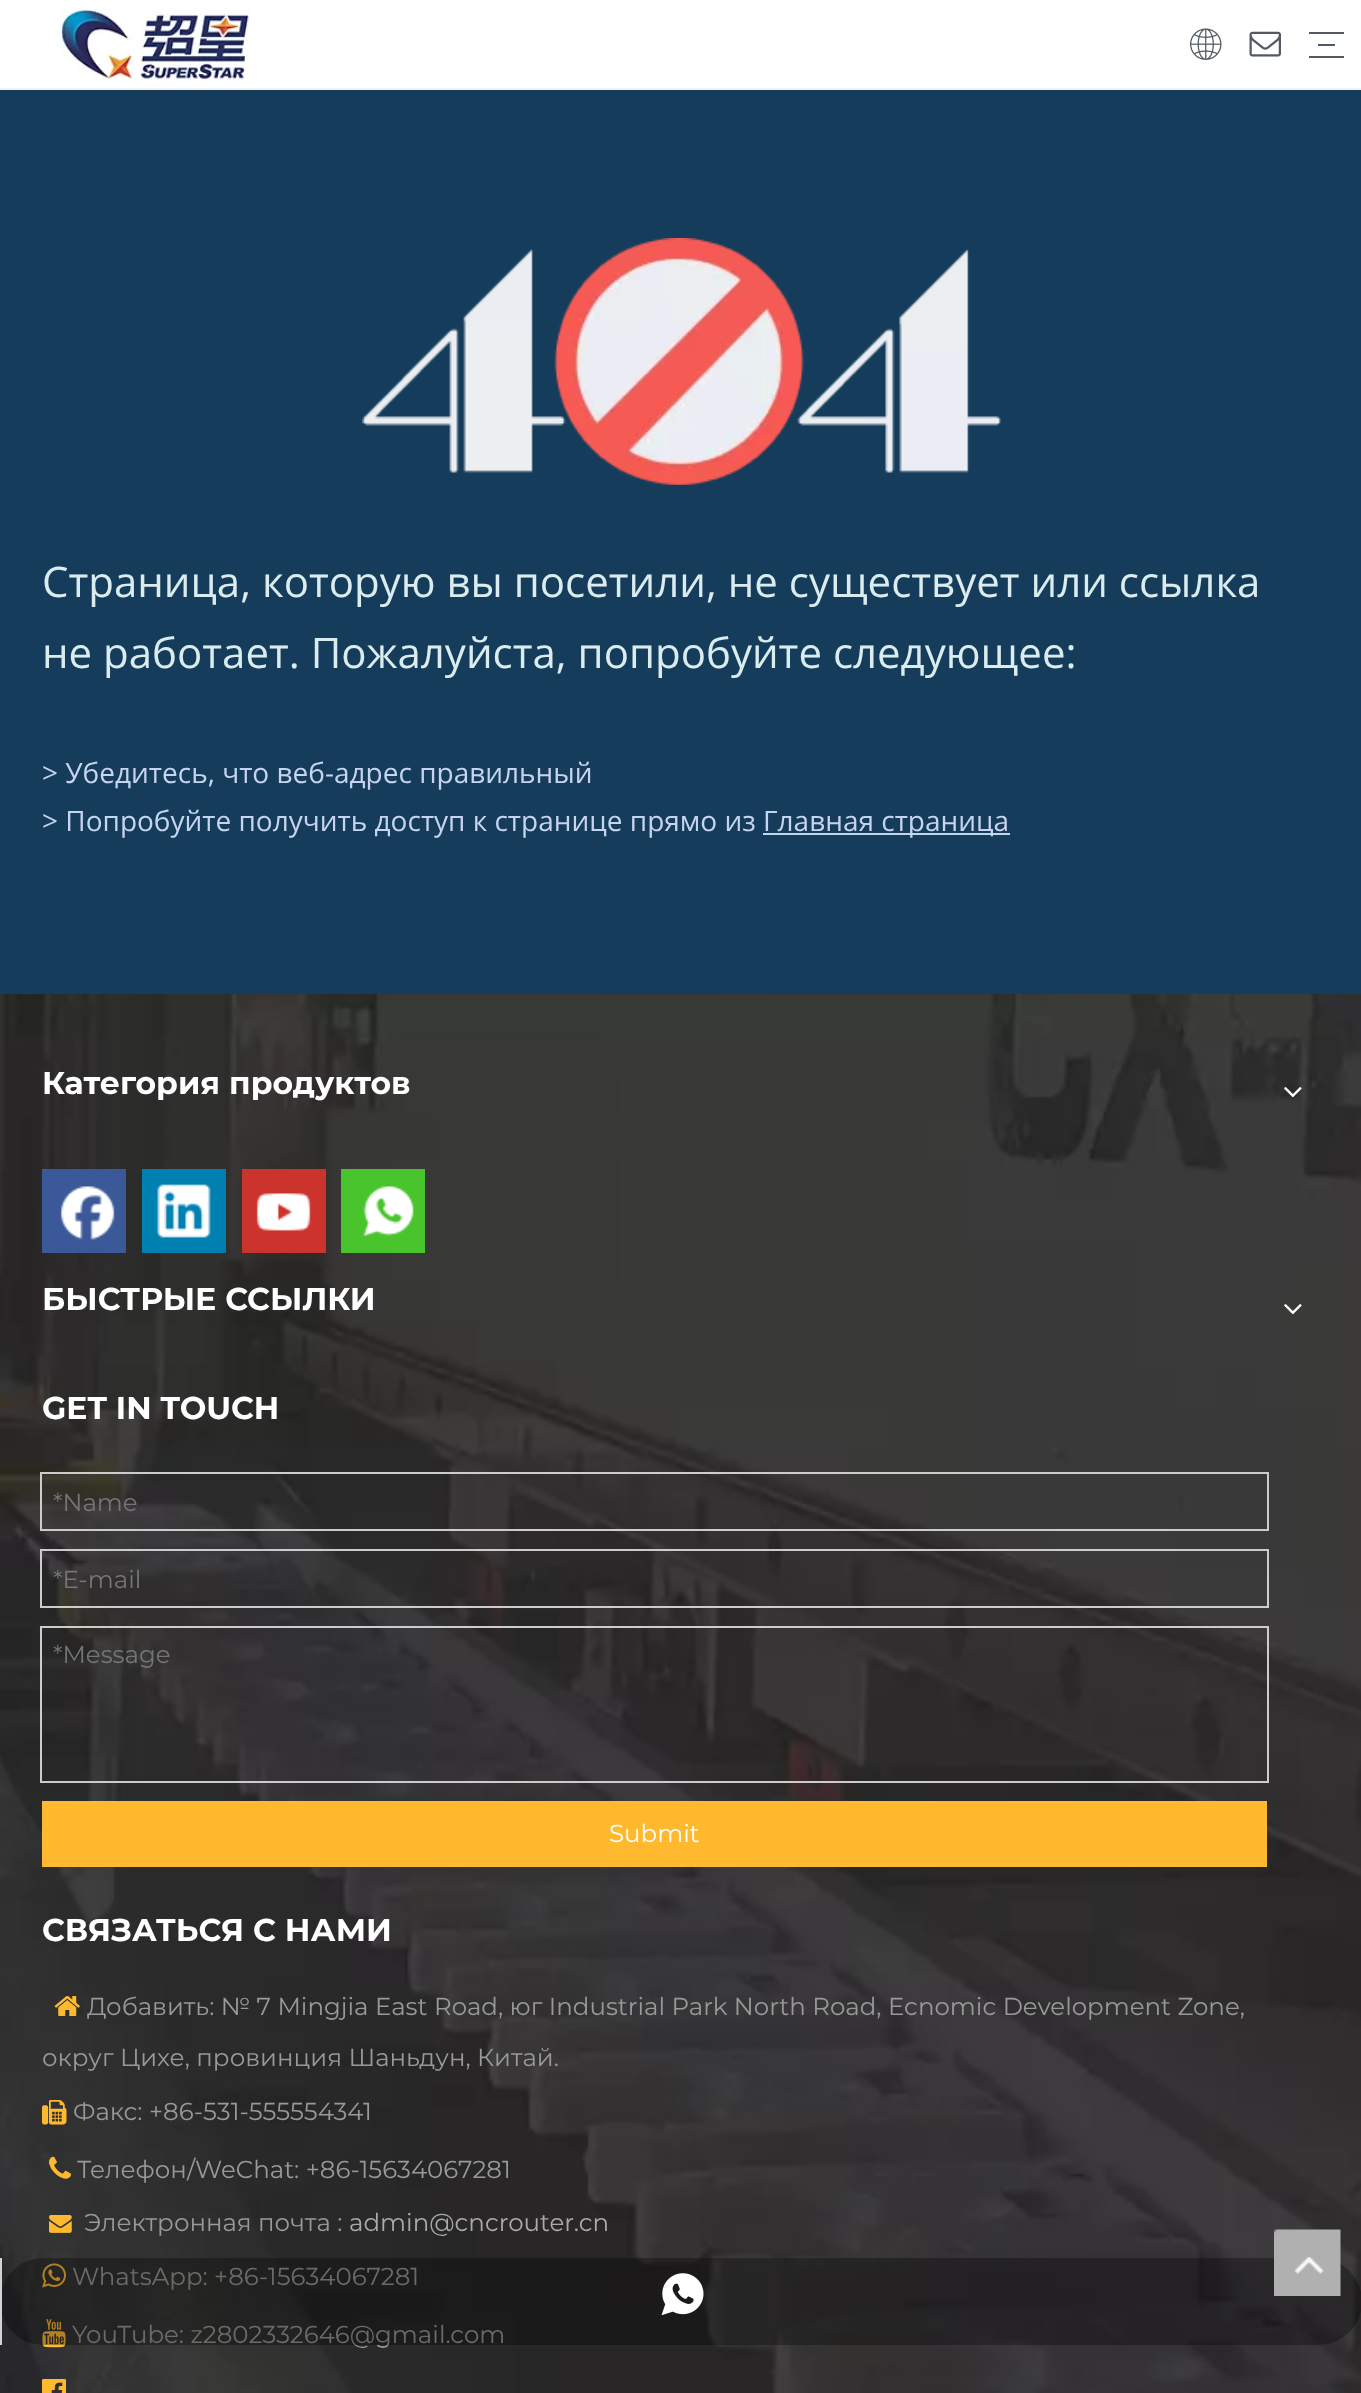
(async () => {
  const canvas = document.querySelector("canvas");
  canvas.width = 1361;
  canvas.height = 2393;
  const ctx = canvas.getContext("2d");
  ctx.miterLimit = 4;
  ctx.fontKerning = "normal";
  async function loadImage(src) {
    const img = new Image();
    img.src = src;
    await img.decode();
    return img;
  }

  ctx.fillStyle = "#ffffff";
  ctx.fillRect(0, 0, 1361, 2393);
  ctx.fillStyle = "#f3f3f3";
  ctx.fillRect(0, 88, 1361, 2);
  ctx.drawImage(await loadImage("img/1.png"), 60, 8, 189, 73);
  ctx.drawImage(await loadImage("img/2.png"), 1190, 28, 32, 32);
  ctx.drawImage(await loadImage("img/3.png"), 1249, 31, 32, 26);
  for (const [x, y, w, h, color] of [
    [1309, 32, 35, 2, "#535a62"],
    [1318, 44, 17, 2, "#535a62"],
    [1309, 56, 35, 2, "#535a62"],
    [0, 90, 1361, 904, "#153d5b"],
  ]) {
    ctx.fillStyle = color;
    ctx.fillRect(x, y, w, h);
  }
  ctx.drawImage(await loadImage("img/4.png"), 362, 238, 639, 247);
  ctx.fillStyle = "#c6d4ef";
  ctx.fillRect(763, 833, 247, 2);
  ctx.drawImage(await loadImage("img/5.png"), 0, 994, 1361, 1399);
  ctx.drawImage(await loadImage("img/6.png"), 1284, 1087, 18, 11);
  ctx.fillStyle = "#3b5998";
  ctx.fillRect(42, 1169, 84, 84);
  ctx.drawImage(await loadImage("img/7.png"), 60, 1186, 55, 54);
  ctx.fillStyle = "#007fb1";
  ctx.fillRect(142, 1169, 84, 84);
  ctx.drawImage(await loadImage("img/8.png"), 157, 1184, 54, 54);
  ctx.fillStyle = "#cd332d";
  ctx.fillRect(242, 1169, 84, 84);
  ctx.drawImage(await loadImage("img/9.png"), 256, 1193, 55, 38);
  ctx.fillStyle = "#49c42d";
  ctx.fillRect(341, 1169, 84, 84);
  ctx.drawImage(await loadImage("img/10.png"), 363, 1186, 51, 50);
  ctx.drawImage(await loadImage("img/11.png"), 1284, 1304, 18, 11);
  ctx.strokeStyle = "#cccccc";
  ctx.lineWidth = 2;
  ctx.strokeRect(41, 1473, 1227, 57);
  ctx.strokeRect(41, 1550, 1227, 57);
  ctx.strokeRect(41, 1627, 1227, 155);
  ctx.fillStyle = "#feb92f";
  ctx.fillRect(42, 1801, 1225, 66);
  ctx.drawImage(await loadImage("img/13.png"), 54, 1996, 26, 20);
  ctx.drawImage(await loadImage("img/14.png"), 42, 2100, 25, 25);
  ctx.drawImage(await loadImage("img/15.png"), 49, 2156, 22, 23);
  ctx.drawImage(await loadImage("img/16.png"), 49, 2215, 23, 18);
  ctx.drawImage(await loadImage("img/17.png"), 42, 2263, 24, 25);
  ctx.drawImage(await loadImage("img/18.png"), 42, 2319, 24, 29);
  ctx.drawImage(await loadImage("img/19.png"), 42, 2379, 24, 14);
  ctx.font = "42px Open Sans";
  ctx.fillStyle = "#daecee";
  ctx.fillText("Страница, которую вы посетили, не существует или ссылка", 42, 597);
  ctx.fillText("не работает. Пожалуйста, попробуйте следующее:", 42, 668);
  ctx.font = "28px Open Sans";
  ctx.fillStyle = "#c6d4ef";
  for (const [text, x, y] of [
    ["> Убедитесь, что веб-адрес правильный", 42, 783],
    ["> Попробуйте получить доступ к странице прямо из", 42, 831],
    ["Главная страница", 763, 831],
  ]) {
    ctx.fillText(text, x, y);
  }
  ctx.font = "bold 31.5px Montserrat";
  ctx.fillStyle = "#ffffff";
  for (const [text, x, y] of [
    ["Категория продуктов", 42, 1094],
    ["БЫСТРЫЕ ССЫЛКИ", 42, 1310],
    ["GET IN TOUCH", 42, 1419],
  ]) {
    ctx.fillText(text, x, y);
  }
  ctx.font = "24.5px Montserrat";
  ctx.fillStyle = "#757575";
  for (const [text, x, y] of [
    ["*Name", 53, 1511],
    ["*E-mail", 53, 1588],
    ["*Message", 53, 1663],
  ]) {
    ctx.fillText(text, x, y);
  }
  ctx.fillStyle = "#ffffff";
  ctx.fillText("Submit", 609, 1842);
  ctx.font = "bold 31.5px Montserrat";
  ctx.fillText("СВЯЗАТЬСЯ С НАМИ", 42, 1941);
  ctx.font = "24.5px Montserrat";
  ctx.fillStyle = "#999999";
  for (const [text, x, y] of [
    ["Добавить: № 7 Mingjia East Road, юг Industrial Park North Road, Ecnomic Development Zone,", 87, 2015],
    ["округ Цихе, провинция Шаньдун, Китай.", 42, 2066],
    ["Факс: +86-531-555554341", 73, 2120],
    ["Телефон/WeChat: +86-15634067281", 77, 2178],
    ["Электронная почта :", 84, 2231],
  ]) {
    ctx.fillText(text, x, y);
  }
  ctx.fillStyle = "#aaaaaa";
  ctx.fillText("admin@cncrouter.cn", 349, 2231);
  ctx.fillStyle = "#999999";
  ctx.fillText("WhatsApp: +86-15634067281", 72, 2285);
  ctx.fillText("YouTube: z2802332646@gmail.com", 72, 2343);
  ctx.fillStyle = "rgba(0, 0, 0, 0.3)";
  ctx.beginPath();
  ctx.roundRect(0, 2258, 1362, 87, 43.5);
  ctx.fill();
  ctx.drawImage(await loadImage("img/12.png"), 661, 2273, 43, 43);
  ctx.fillStyle = "#d3d3d3";
  ctx.fillRect(0, 2258, 2, 87);
  ctx.drawImage(await loadImage("img/20.png"), 1274, 2229, 67, 67);
})();
